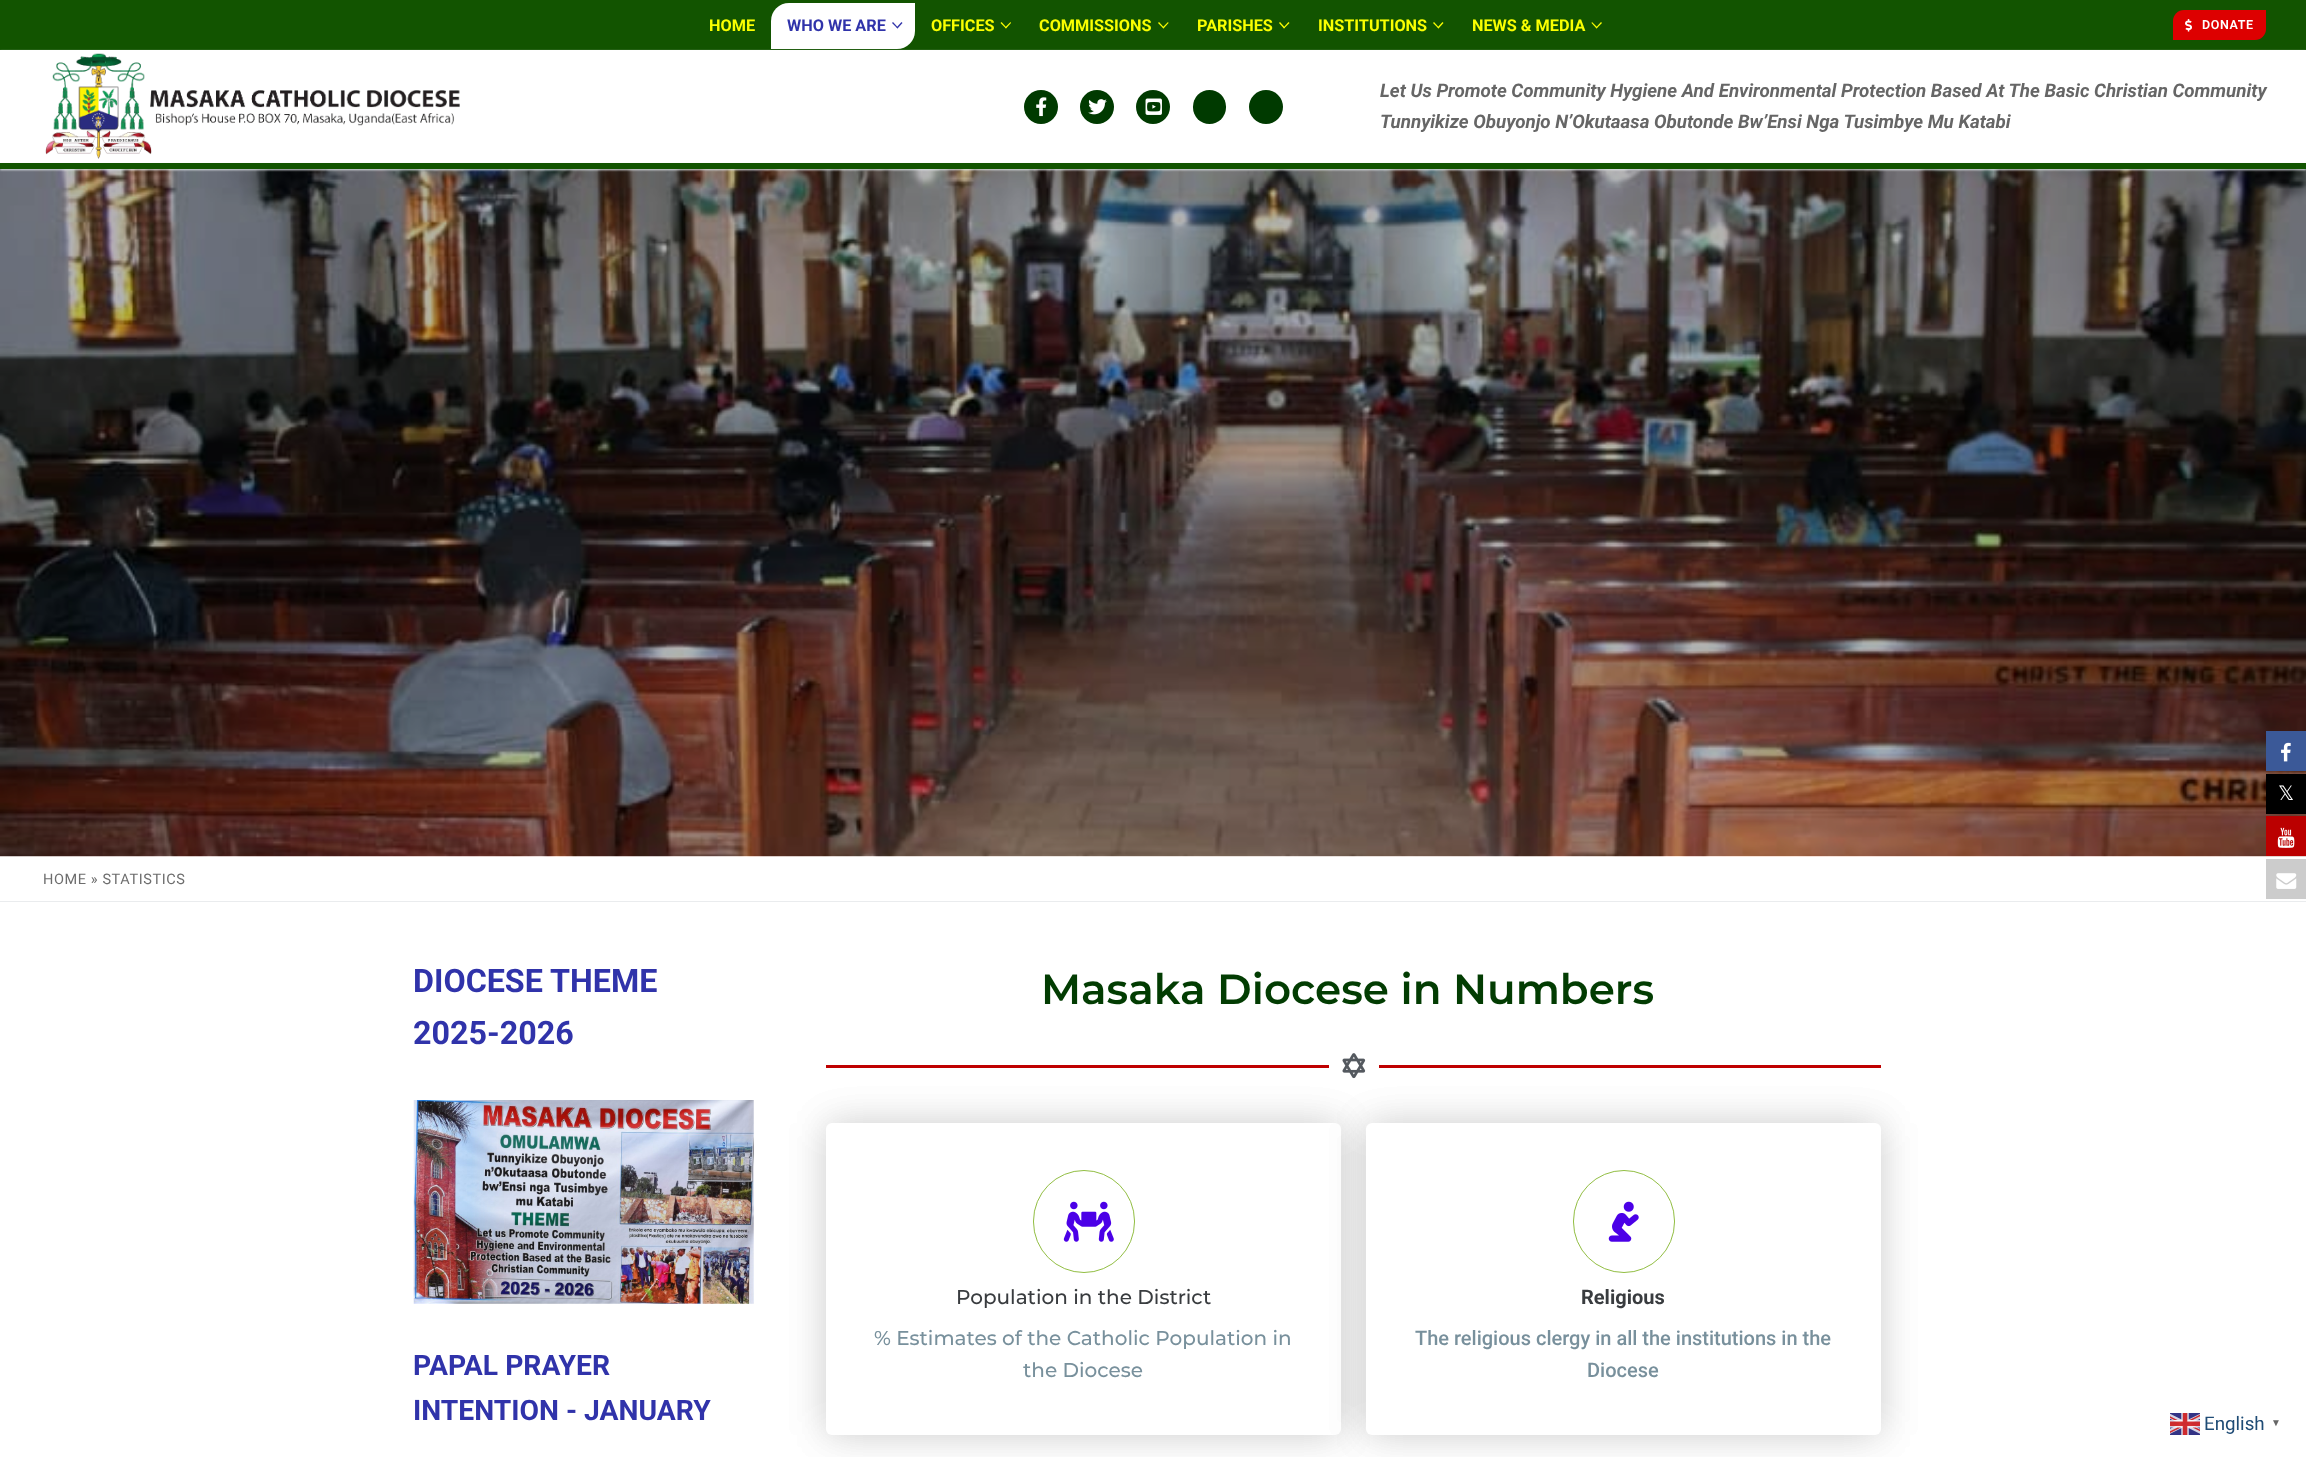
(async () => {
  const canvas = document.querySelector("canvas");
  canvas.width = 2306;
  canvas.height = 1457;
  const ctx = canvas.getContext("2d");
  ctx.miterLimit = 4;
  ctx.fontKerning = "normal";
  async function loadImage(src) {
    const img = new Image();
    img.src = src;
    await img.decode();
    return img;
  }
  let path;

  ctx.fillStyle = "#ffffff";
  ctx.fillRect(0, 0, 2306, 1457);
  ctx.fillStyle = "#125400";
  ctx.fillRect(0, 0, 2306, 50);
  ctx.fillStyle = "#e1e5ea";
  ctx.filter = "blur(1px)";
  ctx.beginPath();
  ctx.rect(0, 51, 2306, 113);
  ctx.fill();
  ctx.filter = "none";
  ctx.fillStyle = "#ffffff";
  ctx.beginPath();
  ctx.roundRect(771, 3, 144, 46, [18, 0, 18, 0]);
  ctx.fill();
  ctx.fillStyle = "#3033aa";
  path = new Path2D("M897.5 28.5L892 23L893 22L898 27.5Z");
  ctx.fill(path);
  path = new Path2D("M897.5 28.5L896.5 27.5L901.5 22L902.5 23Z");
  ctx.fill(path);
  ctx.fillStyle = "#faff00";
  path = new Path2D("M1006 28.5L1000.5 23L1001.5 22L1006.5 27.5Z");
  ctx.fill(path);
  path = new Path2D("M1006 28.5L1005 27.5L1010.5 22L1011 23Z");
  ctx.fill(path);
  path = new Path2D("M1163.5 28.5L1158 23L1159 22L1164 27.5Z");
  ctx.fill(path);
  path = new Path2D("M1163.5 28.5L1162.5 27.5L1168 22L1168.5 23Z");
  ctx.fill(path);
  path = new Path2D("M1284 28.5L1279 23L1280 22L1285 27.5Z");
  ctx.fill(path);
  path = new Path2D("M1284 28.5L1283.5 27.5L1288.5 22L1289.5 23Z");
  ctx.fill(path);
  path = new Path2D("M1438.5 28.5L1433 23L1434 22L1439 27.5Z");
  ctx.fill(path);
  path = new Path2D("M1438.5 28.5L1437.5 27.5L1442.5 22L1443.5 23Z");
  ctx.fill(path);
  path = new Path2D("M1596.5 28.5L1591.5 23L1592 22L1597.5 27.5Z");
  ctx.fill(path);
  path = new Path2D("M1596.5 28.5L1596 27.5L1601 22L1602 23Z");
  ctx.fill(path);
  ctx.fillStyle = "#dd0000";
  ctx.beginPath();
  ctx.roundRect(2173, 10, 93, 30, [11, 0, 11, 0]);
  ctx.fill();
  ctx.drawImage(await loadImage("img/1.png"), 2185, 19, 7, 13);
  ctx.fillStyle = "#ffffff";
  ctx.fillRect(0, 50, 2306, 113);
  ctx.drawImage(await loadImage("img/2.png"), 45, 53, 415, 106);
  ctx.fillStyle = "#003a00";
  ctx.beginPath();
  ctx.arc(1041, 107, 17, 0, Math.PI * 2);
  ctx.fill();
  ctx.drawImage(await loadImage("img/3.png"), 1036, 97, 11, 20);
  ctx.beginPath();
  ctx.arc(1097, 107, 17, 0, Math.PI * 2);
  ctx.fill();
  ctx.drawImage(await loadImage("img/4.png"), 1088, 99, 19, 16);
  ctx.beginPath();
  ctx.arc(1153, 107, 17, 0, Math.PI * 2);
  ctx.fill();
  ctx.drawImage(await loadImage("img/5.png"), 1145, 98, 17, 17);
  ctx.beginPath();
  ctx.roundRect(1193, 90, 33, 34, 16.5);
  ctx.fill();
  ctx.beginPath();
  ctx.arc(1266, 107, 17, 0, Math.PI * 2);
  ctx.fill();
  ctx.drawImage(await loadImage("img/6.png"), 0, 169, 2306, 688);
  ctx.fillStyle = "#e1e5ea";
  ctx.filter = "blur(1px)";
  ctx.beginPath();
  ctx.rect(0, 164, 2306, 6);
  ctx.fill();
  ctx.filter = "none";
  ctx.fillStyle = "#125400";
  ctx.fillRect(0, 163, 2306, 6);
  ctx.fillStyle = "#eaecee";
  ctx.fillRect(0, 901, 2306, 1);
  ctx.drawImage(await loadImage("img/7.png"), 413, 1100, 341, 204);
  ctx.fillStyle = "#bf0000";
  ctx.fillRect(826, 1065, 503, 3);
  ctx.drawImage(await loadImage("img/8.png"), 1342, 1053, 24, 26);
  ctx.fillRect(1379, 1065, 502, 3);
  ctx.fillStyle = "rgba(0, 0, 0, 0.1)";
  ctx.filter = "blur(19px)";
  ctx.beginPath();
  ctx.roundRect(826, 1123, 515, 312, 6);
  ctx.fill();
  ctx.filter = "none";
  ctx.filter = "blur(19px)";
  ctx.beginPath();
  ctx.roundRect(826, 1123, 515, 312, 6);
  ctx.fill();
  ctx.filter = "none";
  ctx.fillStyle = "#ffffff";
  ctx.beginPath();
  ctx.roundRect(826, 1123, 515, 312, 6);
  ctx.fill();
  ctx.beginPath();
  ctx.roundRect(1033.5, 1170.5, 101, 102, 50.5);
  ctx.strokeStyle = "#92be43";
  ctx.stroke();
  ctx.drawImage(await loadImage("img/9.png"), 1063, 1201, 51, 41);
  ctx.fillStyle = "rgba(0, 0, 0, 0.1)";
  ctx.filter = "blur(19px)";
  ctx.beginPath();
  ctx.roundRect(1366, 1123, 515, 312, 6);
  ctx.fill();
  ctx.filter = "none";
  ctx.filter = "blur(19px)";
  ctx.beginPath();
  ctx.roundRect(1366, 1123, 515, 312, 6);
  ctx.fill();
  ctx.filter = "none";
  ctx.fillStyle = "#ffffff";
  ctx.beginPath();
  ctx.roundRect(1366, 1123, 515, 312, 6);
  ctx.fill();
  ctx.beginPath();
  ctx.roundRect(1573.5, 1170.5, 101, 102, 50.5);
  ctx.stroke();
  ctx.drawImage(await loadImage("img/10.png"), 1608, 1201, 31, 41);
  ctx.fillStyle = "#3b5998";
  ctx.fillRect(2266, 731, 40, 40);
  ctx.drawImage(await loadImage("img/11.png"), 2281, 742, 10, 20);
  ctx.fillStyle = "#000000";
  ctx.fillRect(2266, 774, 40, 40);
  ctx.fillStyle = "#bb0000";
  ctx.fillRect(2266, 816, 40, 40);
  ctx.drawImage(await loadImage("img/12.png"), 2277, 827, 18, 21);
  ctx.fillStyle = "#cccccc";
  ctx.fillRect(2266, 859, 40, 40);
  ctx.drawImage(await loadImage("img/13.png"), 2276, 873, 21, 16);
  ctx.drawImage(await loadImage("img/14.png"), 2170, 1413, 30, 22);
  ctx.font = "bold 16.25px Roboto";
  ctx.fillStyle = "#faff00";
  ctx.fillText("HOME", 709, 31);
  ctx.fillStyle = "#3033aa";
  ctx.fillText("WHO WE ARE", 787, 31);
  ctx.fillStyle = "#faff00";
  for (const [text, x, y] of [
    ["OFFICES", 931, 31],
    ["COMMISSIONS", 1039, 31],
    ["PARISHES", 1197, 31],
    ["INSTITUTIONS", 1318, 31],
    ["NEWS & MEDIA", 1472, 31],
  ]) {
    ctx.fillText(text, x, y);
  }
  ctx.letterSpacing = "0.6px";
  ctx.font = "600 12.5px Roboto";
  ctx.fillStyle = "#ffffff";
  ctx.fillText("DONATE", 2202, 29);
  ctx.letterSpacing = "0px";
  ctx.font = "italic bold 18.75px Roboto";
  ctx.fillStyle = "#666666";
  ctx.fillText("Let Us Promote Community Hygiene And Environmental Protection Based At The Basic Christian Community", 1380, 97);
  ctx.fillText("Tunnyikize Obuyonjo N’Okutaasa Obutonde Bw’Ensi Nga Tusimbye Mu Katabi", 1380, 128);
  ctx.letterSpacing = "0.6px";
  ctx.font = "14.5px Roboto";
  ctx.fillStyle = "#6d6d6d";
  ctx.fillText("HOME » STATISTICS", 43, 884);
  ctx.letterSpacing = "0px";
  ctx.font = "bold 32.25px Roboto";
  ctx.fillStyle = "#3033aa";
  ctx.fillText("DIOCESE THEME", 413, 992);
  ctx.fillText("2025-2026", 413, 1044);
  ctx.font = "bold 28.25px Roboto";
  ctx.fillText("PAPAL PRAYER", 413, 1375);
  ctx.fillText("INTENTION - JANUARY", 413, 1420);
  ctx.font = "600 42px Montserrat";
  ctx.fillStyle = "#023c02";
  ctx.fillText("Masaka Diocese in Numbers", 1041, 1004);
  ctx.font = "500 20px Montserrat";
  ctx.fillStyle = "#393c3f";
  ctx.fillText("Population in the District", 956, 1304);
  ctx.fillStyle = "#78909c";
  ctx.fillText("% Estimates of the Catholic Population in", 874, 1345);
  ctx.fillText("the Diocese", 1023, 1377);
  ctx.font = "bold 20px Roboto";
  ctx.fillStyle = "#393c3f";
  ctx.fillText("Religious", 1581, 1304);
  ctx.font = "500 20px Roboto";
  ctx.fillStyle = "#78909c";
  ctx.fillText("The religious clergy in all the institutions in the", 1415, 1345);
  ctx.fillText("Diocese", 1587, 1377);
  ctx.font = "20px DejaVu Sans";
  ctx.fillStyle = "#ffffff";
  ctx.fillText("𝕏", 2278, 800);
  ctx.font = "18.75px Roboto";
  ctx.fillStyle = "#1e4b75";
  ctx.fillText("English", 2204, 1430);
  ctx.font = "bold 10px Liberation Sans";
  ctx.fillStyle = "#666666";
  ctx.fillText("▼", 2271, 1426);
})();
